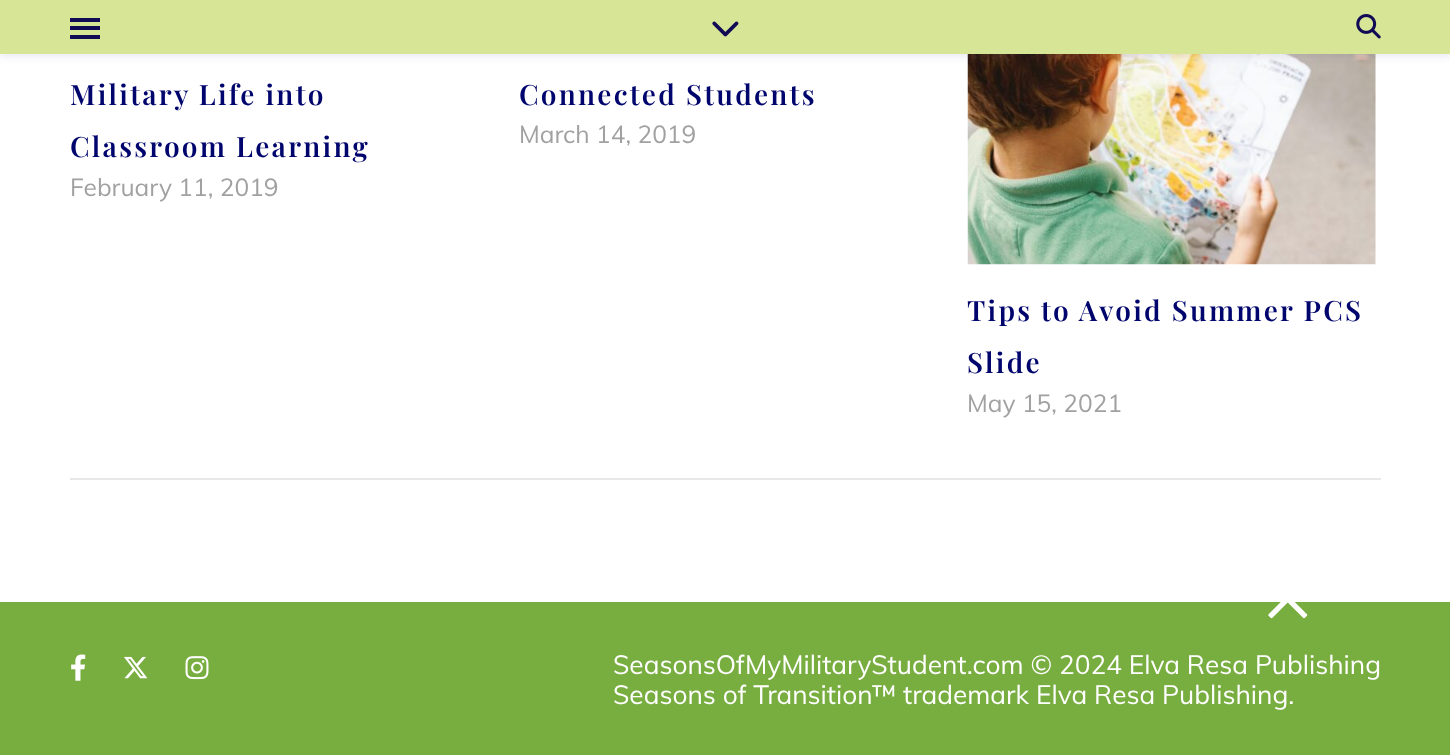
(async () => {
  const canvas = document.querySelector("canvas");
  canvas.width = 1450;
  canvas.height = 755;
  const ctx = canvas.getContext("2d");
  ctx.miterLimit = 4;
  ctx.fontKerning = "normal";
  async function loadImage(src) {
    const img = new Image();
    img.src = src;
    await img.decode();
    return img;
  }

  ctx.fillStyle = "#ffffff";
  ctx.fillRect(0, 0, 1450, 755);
  ctx.drawImage(await loadImage("img/3.png"), 967, 54, 409, 211);
  ctx.fillStyle = "rgba(17, 11, 86, 0.1)";
  ctx.filter = "blur(4.5px)";
  ctx.beginPath();
  ctx.rect(0, 2, 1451, 54);
  ctx.fill();
  ctx.filter = "none";
  for (const [x, y, w, h, color] of [
    [0, 0, 1450, 54, "#d7e597"],
    [70, 18, 30, 4, "#110b56"],
    [70, 26, 30, 4, "#110b56"],
    [70, 35, 30, 4, "#110b56"],
  ]) {
    ctx.fillStyle = color;
    ctx.fillRect(x, y, w, h);
  }
  ctx.drawImage(await loadImage("img/1.png"), 712, 21, 27, 16);
  ctx.drawImage(await loadImage("img/2.png"), 1356, 14, 25, 25);
  ctx.fillStyle = "#e8e8e8";
  ctx.fillRect(70, 478, 1311, 2);
  ctx.fillStyle = "#78ad40";
  ctx.fillRect(0, 602, 1450, 153);
  ctx.drawImage(await loadImage("img/4.png"), 1268, 602, 40, 17);
  ctx.drawImage(await loadImage("img/5.png"), 71, 654, 15, 27);
  ctx.drawImage(await loadImage("img/6.png"), 124, 656, 24, 23);
  ctx.drawImage(await loadImage("img/7.png"), 185, 656, 24, 24);
  ctx.letterSpacing = "2.25px";
  ctx.font = "600 28px Playfair Display";
  ctx.fillStyle = "#00056d";
  ctx.fillText("Military Life into", 70, 105);
  ctx.fillText("Classroom Learning", 70, 157);
  ctx.letterSpacing = "0px";
  ctx.font = "24.5px Muli";
  ctx.fillStyle = "#a1a1a1";
  ctx.fillText("February 11, 2019", 70, 196);
  ctx.letterSpacing = "2.25px";
  ctx.font = "600 28px Playfair Display";
  ctx.fillStyle = "#00056d";
  ctx.fillText("Connected Students", 519, 105);
  ctx.letterSpacing = "0px";
  ctx.font = "24.5px Muli";
  ctx.fillStyle = "#a1a1a1";
  ctx.fillText("March 14, 2019", 519, 143);
  ctx.letterSpacing = "2.25px";
  ctx.font = "600 28px Playfair Display";
  ctx.fillStyle = "#00056d";
  ctx.fillText("Tips to Avoid Summer PCS", 967, 321);
  ctx.fillText("Slide", 967, 373);
  ctx.letterSpacing = "0px";
  ctx.font = "24.5px Muli";
  ctx.fillStyle = "#a1a1a1";
  ctx.fillText("May 15, 2021", 967, 412);
  ctx.font = "26.25px Muli";
  ctx.fillStyle = "#ffffff";
  ctx.fillText("SeasonsOfMyMilitaryStudent.com © 2024 Elva Resa Publishing", 613, 674);
  ctx.fillText("Seasons of Transition™ trademark Elva Resa Publishing.", 613, 704);
})();
